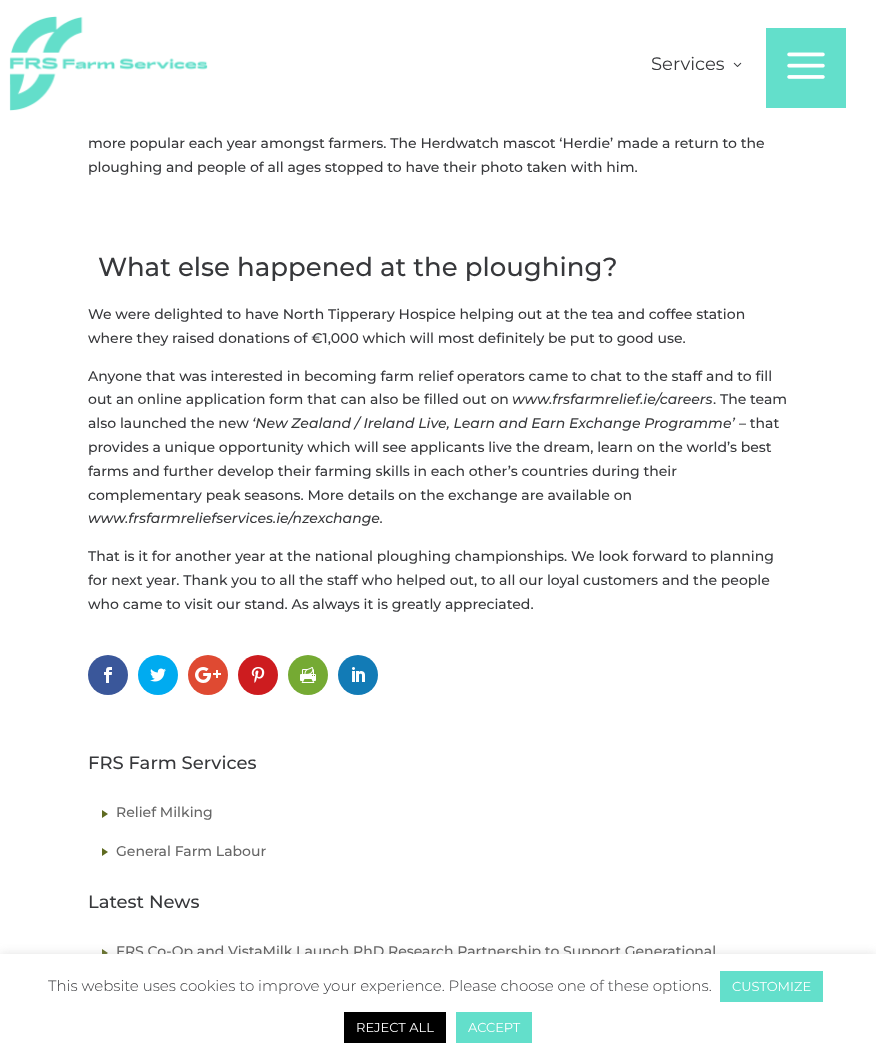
(async () => {
  const canvas = document.querySelector("canvas");
  canvas.width = 876;
  canvas.height = 1060;
  const ctx = canvas.getContext("2d");
  ctx.miterLimit = 4;
  ctx.fontKerning = "normal";
  async function loadImage(src) {
    const img = new Image();
    img.src = src;
    await img.decode();
    return img;
  }
  let path;

  ctx.fillStyle = "#ffffff";
  ctx.fillRect(0, 0, 876, 1060);
  ctx.drawImage(await loadImage("img/1.png"), 9, 16, 199, 95);
  ctx.drawImage(await loadImage("img/2.png"), 733, 62, 9, 5);
  ctx.fillStyle = "#63dfcb";
  ctx.fillRect(766, 28, 80, 80);
  ctx.drawImage(await loadImage("img/3.png"), 787, 52, 38, 27);
  ctx.fillStyle = "#3a579a";
  ctx.beginPath();
  ctx.arc(108, 675, 20, 0, Math.PI * 2);
  ctx.fill();
  ctx.drawImage(await loadImage("img/4.png"), 104, 667, 8, 16);
  ctx.fillStyle = "#00abf0";
  ctx.beginPath();
  ctx.arc(158, 675, 20, 0, Math.PI * 2);
  ctx.fill();
  ctx.drawImage(await loadImage("img/5.png"), 150, 668, 16, 14);
  ctx.fillStyle = "#df4a32";
  ctx.beginPath();
  ctx.arc(208, 675, 20, 0, Math.PI * 2);
  ctx.fill();
  ctx.drawImage(await loadImage("img/6.png"), 195, 667, 26, 16);
  ctx.fillStyle = "#cd1c1f";
  ctx.beginPath();
  ctx.arc(258, 675, 20, 0, Math.PI * 2);
  ctx.fill();
  ctx.drawImage(await loadImage("img/7.png"), 251, 667, 14, 16);
  ctx.fillStyle = "#75aa33";
  ctx.beginPath();
  ctx.arc(308, 675, 20, 0, Math.PI * 2);
  ctx.fill();
  ctx.drawImage(await loadImage("img/8.png"), 300, 667, 16, 16);
  ctx.fillStyle = "#127bb6";
  ctx.beginPath();
  ctx.arc(358, 675, 20, 0, Math.PI * 2);
  ctx.fill();
  ctx.drawImage(await loadImage("img/9.png"), 352, 667, 13, 15);
  ctx.fillStyle = "#5f6b21";
  path = new Path2D("M102 818V810L108 814ZM102 856V848L108 852Z");
  ctx.fill(path);
  path = new Path2D("M102 957V949L108 953Z");
  ctx.fill(path);
  ctx.fillStyle = "rgba(172, 171, 171, 0.3)";
  ctx.filter = "blur(5px)";
  ctx.beginPath();
  ctx.rect(0, 953, 876, 106);
  ctx.fill();
  ctx.filter = "none";
  ctx.font = "18px Montserrat";
  ctx.fillStyle = "#37383b";
  ctx.fillText("Services", 651, 70);
  ctx.font = "500 14px Montserrat";
  ctx.fillText("more popular each year amongst farmers. The Herdwatch mascot ‘Herdie’ made a return to the", 88, 148);
  ctx.fillText("ploughing and people of all ages stopped to have their photo taken with him.", 88, 172);
  ctx.font = "500 26px Montserrat";
  ctx.fillText("What else happened at the ploughing?", 98, 276);
  ctx.font = "500 14px Montserrat";
  for (const [text, x, y] of [
    ["We were delighted to have North Tipperary Hospice helping out at the tea and coffee station", 88, 319],
    ["where they raised donations of €1,000 which will most definitely be put to good use.", 88, 343],
    ["Anyone that was interested in becoming farm relief operators came to chat to the staff and to fill", 88, 381],
    ["out an online application form that can also be filled out on", 88, 404],
  ]) {
    ctx.fillText(text, x, y);
  }
  ctx.font = "italic 500 14px Montserrat";
  ctx.fillText("www.frsfarmrelief.ie/careers", 512, 404);
  ctx.font = "500 14px Montserrat";
  ctx.fillText(". The team", 713, 404);
  ctx.fillText("also launched the new", 88, 428);
  ctx.font = "italic 500 14px Montserrat";
  ctx.fillText("‘New Zealand / Ireland Live, Learn and Earn Exchange Programme’", 252, 428);
  ctx.font = "500 14px Montserrat";
  for (const [text, x, y] of [
    ["– that", 739, 428],
    ["provides a unique opportunity which will see applicants live the dream, learn on the world’s best", 88, 452],
    ["farms and further develop their farming skills in each other’s countries during their", 88, 476],
    ["complementary peak seasons. More details on the exchange are available on", 88, 500],
  ]) {
    ctx.fillText(text, x, y);
  }
  ctx.font = "italic 500 14px Montserrat";
  ctx.fillText("www.frsfarmreliefservices.ie/nzexchange.", 88, 523);
  ctx.font = "500 14px Montserrat";
  for (const [text, x, y] of [
    ["That is it for another year at the national ploughing championships. We look forward to planning", 88, 561],
    ["for next year. Thank you to all the staff who helped out, to all our loyal customers and the people", 88, 585],
    ["who came to visit our stand. As always it is greatly appreciated.", 88, 609],
  ]) {
    ctx.fillText(text, x, y);
  }
  ctx.font = "500 18px Montserrat";
  ctx.fillText("FRS Farm Services", 88, 769);
  ctx.font = "500 14px Montserrat";
  ctx.fillStyle = "#666666";
  ctx.fillText("Relief Milking", 116, 817);
  ctx.fillText("General Farm Labour", 116, 856);
  ctx.font = "500 18px Montserrat";
  ctx.fillStyle = "#37383b";
  ctx.fillText("Latest News", 88, 908);
  ctx.font = "500 14px Montserrat";
  ctx.fillStyle = "#666666";
  ctx.fillText("FRS Co-Op and VistaMilk Launch PhD Research Partnership to Support Generational", 116, 956);
  ctx.fillStyle = "#ffffff";
  ctx.fillRect(0, 954, 876, 106);
  ctx.font = "300 15px Montserrat";
  ctx.fillStyle = "#37383b";
  ctx.fillText("This website uses cookies to improve your experience. Please choose one of these options.", 48, 991);
  ctx.fillStyle = "#63dfcb";
  ctx.fillRect(720, 971, 103, 31);
  ctx.font = "13px Montserrat";
  ctx.fillStyle = "#ffffff";
  ctx.fillText("CUSTOMIZE", 732, 991);
  ctx.fillStyle = "#000000";
  ctx.fillRect(344, 1012, 102, 31);
  ctx.fillStyle = "#ffffff";
  ctx.fillText("REJECT ALL", 356, 1032);
  ctx.fillStyle = "#63dfcb";
  ctx.fillRect(456, 1012, 76, 31);
  ctx.fillStyle = "#ffffff";
  ctx.fillText("ACCEPT", 468, 1032);
})();
